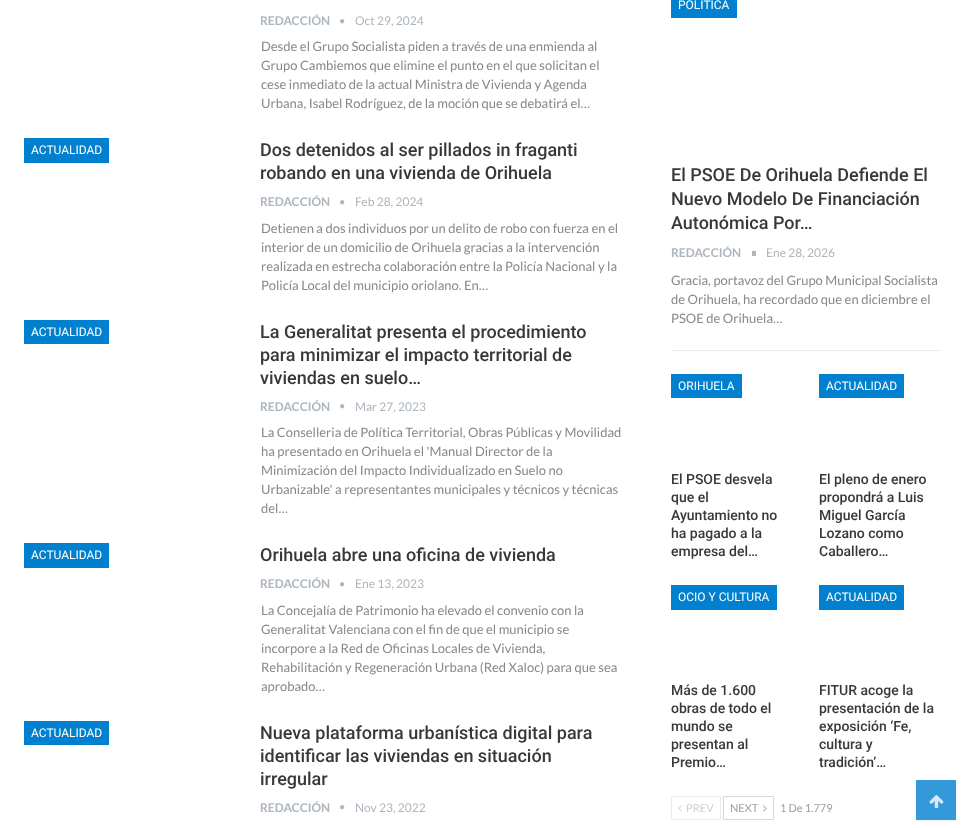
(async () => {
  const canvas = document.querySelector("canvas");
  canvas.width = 966;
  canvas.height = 828;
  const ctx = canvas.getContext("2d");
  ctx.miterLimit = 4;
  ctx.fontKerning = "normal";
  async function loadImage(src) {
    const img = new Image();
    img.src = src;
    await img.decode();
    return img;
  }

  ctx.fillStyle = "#ffffff";
  ctx.fillRect(0, 0, 966, 828);
  ctx.drawImage(await loadImage("img/1.png"), 340, 19, 5, 5);
  ctx.fillStyle = "#0080ce";
  ctx.fillRect(24, 138, 85, 25);
  ctx.drawImage(await loadImage("img/1.png"), 340, 200, 5, 5);
  ctx.fillRect(24, 320, 85, 24);
  ctx.drawImage(await loadImage("img/1.png"), 340, 404, 5, 5);
  ctx.fillRect(24, 543, 85, 25);
  ctx.drawImage(await loadImage("img/1.png"), 340, 582, 5, 5);
  ctx.fillRect(24, 721, 85, 24);
  ctx.drawImage(await loadImage("img/1.png"), 340, 805, 5, 5);
  for (const [x, y, w, h, color] of [
    [671, 0, 66, 18, "#0080ce"],
    [752, 251, 4, 5, "#adb5bd"],
    [671, 350, 271, 1, "#ededed"],
    [671, 374, 71, 24, "#0080ce"],
    [819, 374, 85, 24, "#0080ce"],
    [671, 585, 106, 25, "#0080ce"],
    [819, 585, 85, 25, "#0080ce"],
  ]) {
    ctx.fillStyle = color;
    ctx.fillRect(x, y, w, h);
  }
  ctx.strokeStyle = "#ececec";
  ctx.strokeRect(671.5, 796.5, 49, 23);
  ctx.drawImage(await loadImage("img/2.png"), 678, 805, 4, 7);
  ctx.strokeStyle = "#d8d8d8";
  ctx.strokeRect(723.5, 796.5, 50, 23);
  ctx.drawImage(await loadImage("img/3.png"), 763, 805, 4, 7);
  ctx.fillStyle = "rgba(51, 51, 51, 0.09)";
  ctx.filter = "blur(1px)";
  ctx.beginPath();
  ctx.rect(916, 781, 40, 40);
  ctx.fill();
  ctx.filter = "none";
  ctx.fillStyle = "#3399d8";
  ctx.fillRect(916, 780, 40, 40);
  ctx.drawImage(await loadImage("img/4.png"), 929, 795, 15, 14);
  ctx.font = "bold 12px Lato";
  ctx.fillStyle = "#adb5bd";
  ctx.fillText("REDACCIÓN", 260, 25);
  ctx.font = "12px Lato";
  ctx.fillText("Oct 29, 2024", 355, 25);
  ctx.font = "13px Lato";
  ctx.fillStyle = "#888888";
  for (const [text, x, y] of [
    ["Desde el Grupo Socialista piden a través de una enmienda al", 261, 51],
    ["Grupo Cambiemos que elimine el punto en el que solicitan el", 261, 70],
    ["cese inmediato de la actual Ministra de Vivienda y Agenda", 261, 89],
    ["Urbana, Isabel Rodríguez, de la moción que se debatirá el…", 261, 108],
  ]) {
    ctx.fillText(text, x, y);
  }
  ctx.font = "12px Roboto";
  ctx.fillStyle = "#ffffff";
  ctx.fillText("ACTUALIDAD", 31, 154);
  ctx.font = "500 18px Roboto";
  ctx.fillStyle = "#383838";
  ctx.fillText("Dos detenidos al ser pillados in fraganti", 260, 156);
  ctx.fillText("robando en una vivienda de Orihuela", 260, 179);
  ctx.font = "bold 12px Lato";
  ctx.fillStyle = "#adb5bd";
  ctx.fillText("REDACCIÓN", 260, 206);
  ctx.font = "12px Lato";
  ctx.fillText("Feb 28, 2024", 355, 206);
  ctx.font = "13px Lato";
  ctx.fillStyle = "#888888";
  for (const [text, x, y] of [
    ["Detienen a dos individuos por un delito de robo con fuerza en el", 261, 233],
    ["interior de un domicilio de Orihuela gracias a la intervención", 261, 252],
    ["realizada en estrecha colaboración entre la Policía Nacional y la", 261, 271],
    ["Policía Local del municipio oriolano. En…", 261, 290],
  ]) {
    ctx.fillText(text, x, y);
  }
  ctx.font = "12px Roboto";
  ctx.fillStyle = "#ffffff";
  ctx.fillText("ACTUALIDAD", 31, 336);
  ctx.font = "500 18px Roboto";
  ctx.fillStyle = "#383838";
  for (const [text, x, y] of [
    ["La Generalitat presenta el procedimiento", 260, 338],
    ["para minimizar el impacto territorial de", 260, 361],
    ["viviendas en suelo…", 260, 384],
  ]) {
    ctx.fillText(text, x, y);
  }
  ctx.font = "bold 12px Lato";
  ctx.fillStyle = "#adb5bd";
  ctx.fillText("REDACCIÓN", 260, 411);
  ctx.font = "12px Lato";
  ctx.fillText("Mar 27, 2023", 355, 411);
  ctx.font = "13px Lato";
  ctx.fillStyle = "#888888";
  for (const [text, x, y] of [
    ["La Conselleria de Política Territorial, Obras Públicas y Movilidad", 261, 437],
    ["ha presentado en Orihuela el 'Manual Director de la", 261, 456],
    ["Minimización del Impacto Individualizado en Suelo no", 261, 475],
    ["Urbanizable' a representantes municipales y técnicos y técnicas", 261, 494],
    ["del…", 261, 513],
  ]) {
    ctx.fillText(text, x, y);
  }
  ctx.font = "12px Roboto";
  ctx.fillStyle = "#ffffff";
  ctx.fillText("ACTUALIDAD", 31, 559);
  ctx.font = "500 18px Roboto";
  ctx.fillStyle = "#383838";
  ctx.fillText("Orihuela abre una oficina de vivienda", 260, 561);
  ctx.font = "bold 12px Lato";
  ctx.fillStyle = "#adb5bd";
  ctx.fillText("REDACCIÓN", 260, 588);
  ctx.font = "12px Lato";
  ctx.fillText("Ene 13, 2023", 355, 588);
  ctx.font = "13px Lato";
  ctx.fillStyle = "#888888";
  for (const [text, x, y] of [
    ["La Concejalía de Patrimonio ha elevado el convenio con la", 261, 615],
    ["Generalitat Valenciana con el fin de que el municipio se", 261, 634],
    ["incorpore a la Red de Oficinas Locales de Vivienda,", 261, 653],
    ["Rehabilitación y Regeneración Urbana (Red Xaloc) para que sea", 261, 672],
    ["aprobado…", 261, 691],
  ]) {
    ctx.fillText(text, x, y);
  }
  ctx.font = "12px Roboto";
  ctx.fillStyle = "#ffffff";
  ctx.fillText("ACTUALIDAD", 31, 737);
  ctx.font = "500 18px Roboto";
  ctx.fillStyle = "#383838";
  for (const [text, x, y] of [
    ["Nueva plataforma urbanística digital para", 260, 739],
    ["identificar las viviendas en situación", 260, 762],
    ["irregular", 260, 785],
  ]) {
    ctx.fillText(text, x, y);
  }
  ctx.font = "bold 12px Lato";
  ctx.fillStyle = "#adb5bd";
  ctx.fillText("REDACCIÓN", 260, 812);
  ctx.font = "12px Lato";
  ctx.fillText("Nov 23, 2022", 355, 812);
  ctx.font = "12px Roboto";
  ctx.fillStyle = "#ffffff";
  ctx.fillText("POLÍTICA", 678, 9);
  ctx.font = "500 18px Roboto";
  ctx.fillStyle = "#383838";
  for (const [text, x, y] of [
    ["El PSOE De Orihuela Defiende El", 671, 181],
    ["Nuevo Modelo De Financiación", 671, 205],
    ["Autonómica Por…", 671, 229],
  ]) {
    ctx.fillText(text, x, y);
  }
  ctx.font = "bold 12px Lato";
  ctx.fillStyle = "#adb5bd";
  ctx.fillText("REDACCIÓN", 671, 257);
  ctx.font = "12px Lato";
  ctx.fillText("Ene 28, 2026", 766, 257);
  ctx.font = "13px Lato";
  ctx.fillStyle = "#888888";
  for (const [text, x, y] of [
    ["Gracia, portavoz del Grupo Municipal Socialista", 671, 285],
    ["de Orihuela, ha recordado que en diciembre el", 671, 304],
    ["PSOE de Orihuela…", 671, 323],
  ]) {
    ctx.fillText(text, x, y);
  }
  ctx.font = "12px Roboto";
  ctx.fillStyle = "#ffffff";
  ctx.fillText("ORIHUELA", 678, 390);
  ctx.font = "500 14px Roboto";
  ctx.fillStyle = "#383838";
  for (const [text, x, y] of [
    ["El PSOE desvela", 671, 484],
    ["que el", 671, 502],
    ["Ayuntamiento no", 671, 520],
    ["ha pagado a la", 671, 538],
    ["empresa del…", 671, 556],
  ]) {
    ctx.fillText(text, x, y);
  }
  ctx.font = "12px Roboto";
  ctx.fillStyle = "#ffffff";
  ctx.fillText("ACTUALIDAD", 826, 390);
  ctx.font = "500 14px Roboto";
  ctx.fillStyle = "#383838";
  for (const [text, x, y] of [
    ["El pleno de enero", 819, 484],
    ["propondrá a Luis", 819, 502],
    ["Miguel García", 819, 520],
    ["Lozano como", 819, 538],
    ["Caballero…", 819, 556],
  ]) {
    ctx.fillText(text, x, y);
  }
  ctx.font = "12px Roboto";
  ctx.fillStyle = "#ffffff";
  ctx.fillText("OCIO Y CULTURA", 678, 601);
  ctx.font = "500 14px Roboto";
  ctx.fillStyle = "#383838";
  for (const [text, x, y] of [
    ["Más de 1.600", 671, 695],
    ["obras de todo el", 671, 713],
    ["mundo se", 671, 731],
    ["presentan al", 671, 749],
    ["Premio…", 671, 767],
  ]) {
    ctx.fillText(text, x, y);
  }
  ctx.font = "12px Roboto";
  ctx.fillStyle = "#ffffff";
  ctx.fillText("ACTUALIDAD", 826, 601);
  ctx.font = "500 14px Roboto";
  ctx.fillStyle = "#383838";
  for (const [text, x, y] of [
    ["FITUR acoge la", 819, 695],
    ["presentación de la", 819, 713],
    ["exposición ‘Fe,", 819, 731],
    ["cultura y", 819, 749],
    ["tradición’…", 819, 767],
  ]) {
    ctx.fillText(text, x, y);
  }
  ctx.font = "11px Lato";
  ctx.fillStyle = "#cfcfcf";
  ctx.fillText("PREV", 686, 812);
  ctx.fillStyle = "#9e9e9e";
  ctx.fillText("NEXT", 730, 812);
  ctx.fillText("1 De 1.779", 780, 812);
})();
